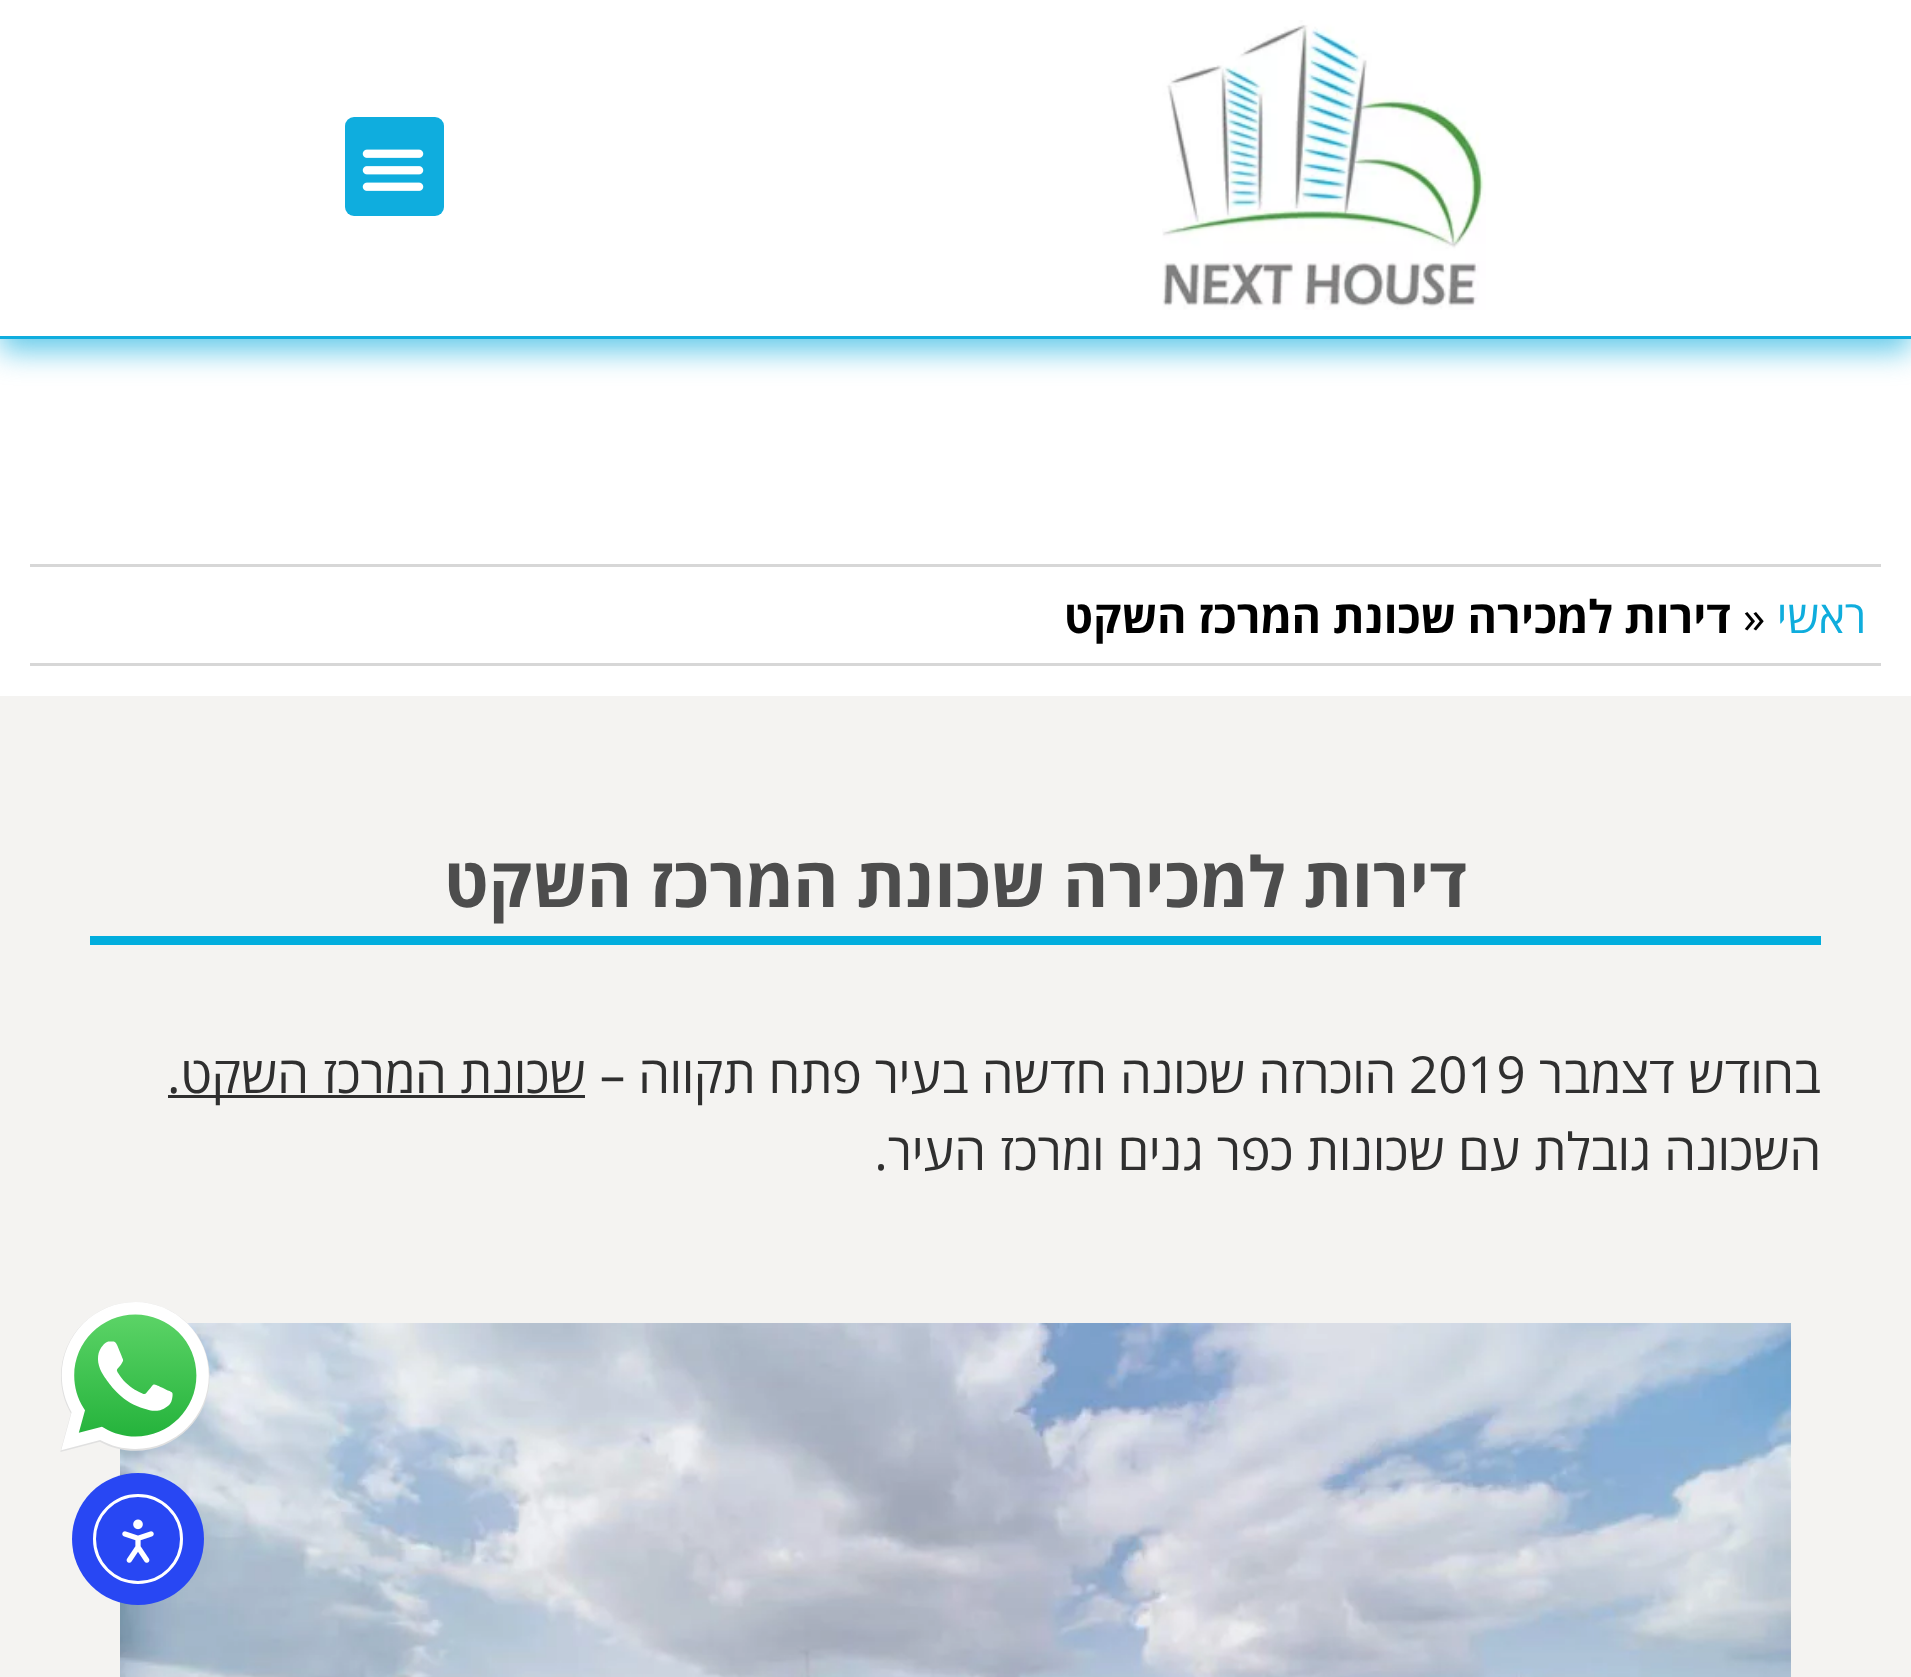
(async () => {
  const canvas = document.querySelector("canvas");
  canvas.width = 1911;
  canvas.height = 1677;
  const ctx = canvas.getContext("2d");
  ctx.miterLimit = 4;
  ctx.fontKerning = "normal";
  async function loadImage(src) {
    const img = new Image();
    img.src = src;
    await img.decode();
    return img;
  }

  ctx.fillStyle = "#ffffff";
  ctx.fillRect(0, 0, 1911, 1677);
  ctx.fillStyle = "rgba(15, 173, 222, 0.66)";
  ctx.filter = "blur(15px)";
  ctx.beginPath();
  ctx.rect(0, 12, 1911, 339);
  ctx.fill();
  ctx.filter = "none";
  ctx.fillStyle = "#ffffff";
  ctx.fillRect(0, 0, 1911, 336);
  ctx.fillStyle = "#0fadde";
  ctx.fillRect(0, 336, 1911, 3);
  ctx.drawImage(await loadImage("img/1.png"), 1162, 20, 324, 290);
  ctx.beginPath();
  ctx.roundRect(345, 117, 99, 99, 9);
  ctx.fill();
  ctx.drawImage(await loadImage("img/2.png"), 362, 149, 62, 42);
  for (const [x, y, w, h, color] of [
    [30, 564, 1851, 3, "#d7d7d7"],
    [30, 663, 1851, 3, "#d7d7d7"],
    [0, 696, 1911, 981, "#f4f3f1"],
    [90, 936, 1731, 9, "#01addd"],
    [168, 1095, 417, 3, "#2f2f2f"],
  ]) {
    ctx.fillStyle = color;
    ctx.fillRect(x, y, w, h);
  }
  ctx.drawImage(await loadImage("img/3.png"), 120, 1323, 1671, 354);
  ctx.drawImage(await loadImage("img/4.png"), 60, 1302, 150, 150);
  ctx.fillStyle = "#2847f3";
  ctx.beginPath();
  ctx.arc(138, 1539, 66, 0, Math.PI * 2);
  ctx.fill();
  ctx.beginPath();
  ctx.arc(138, 1539, 43.5, 0, Math.PI * 2);
  ctx.strokeStyle = "#ffffff";
  ctx.lineWidth = 3;
  ctx.stroke();
  ctx.drawImage(await loadImage("img/5.png"), 122, 1519, 32, 44);
  ctx.direction = "rtl";
  ctx.font = "45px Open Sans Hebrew";
  ctx.fillStyle = "#0faddd";
  ctx.fillText("ראשי", 1866, 633);
  ctx.direction = "ltr";
  ctx.fillStyle = "#000000";
  ctx.fillText("»", 1743, 633);
  ctx.direction = "rtl";
  ctx.font = "bold 45px Open Sans Hebrew";
  ctx.fillText("דירות למכירה שכונת המרכז השקט", 1731, 633);
  ctx.font = "bold 69px Open Sans Hebrew";
  ctx.fillStyle = "#4d4d4d";
  ctx.fillText("דירות למכירה שכונת המרכז השקט", 1467, 907);
  ctx.font = "51px Open Sans Hebrew";
  ctx.fillStyle = "#2f2f2f";
  ctx.fillText("בחודש דצמבר", 1821, 1093);
  ctx.direction = "ltr";
  ctx.fillText("2019", 1409, 1093);
  ctx.direction = "rtl";
  for (const [text, x, y] of [
    ["הוכרזה שכונה חדשה בעיר פתח תקווה –", 1396, 1093],
    ["שכונת המרכז השקט.", 586, 1093],
    ["השכונה גובלת עם שכונות כפר גנים ומרכז העיר.", 1821, 1170],
  ]) {
    ctx.fillText(text, x, y);
  }
})();
